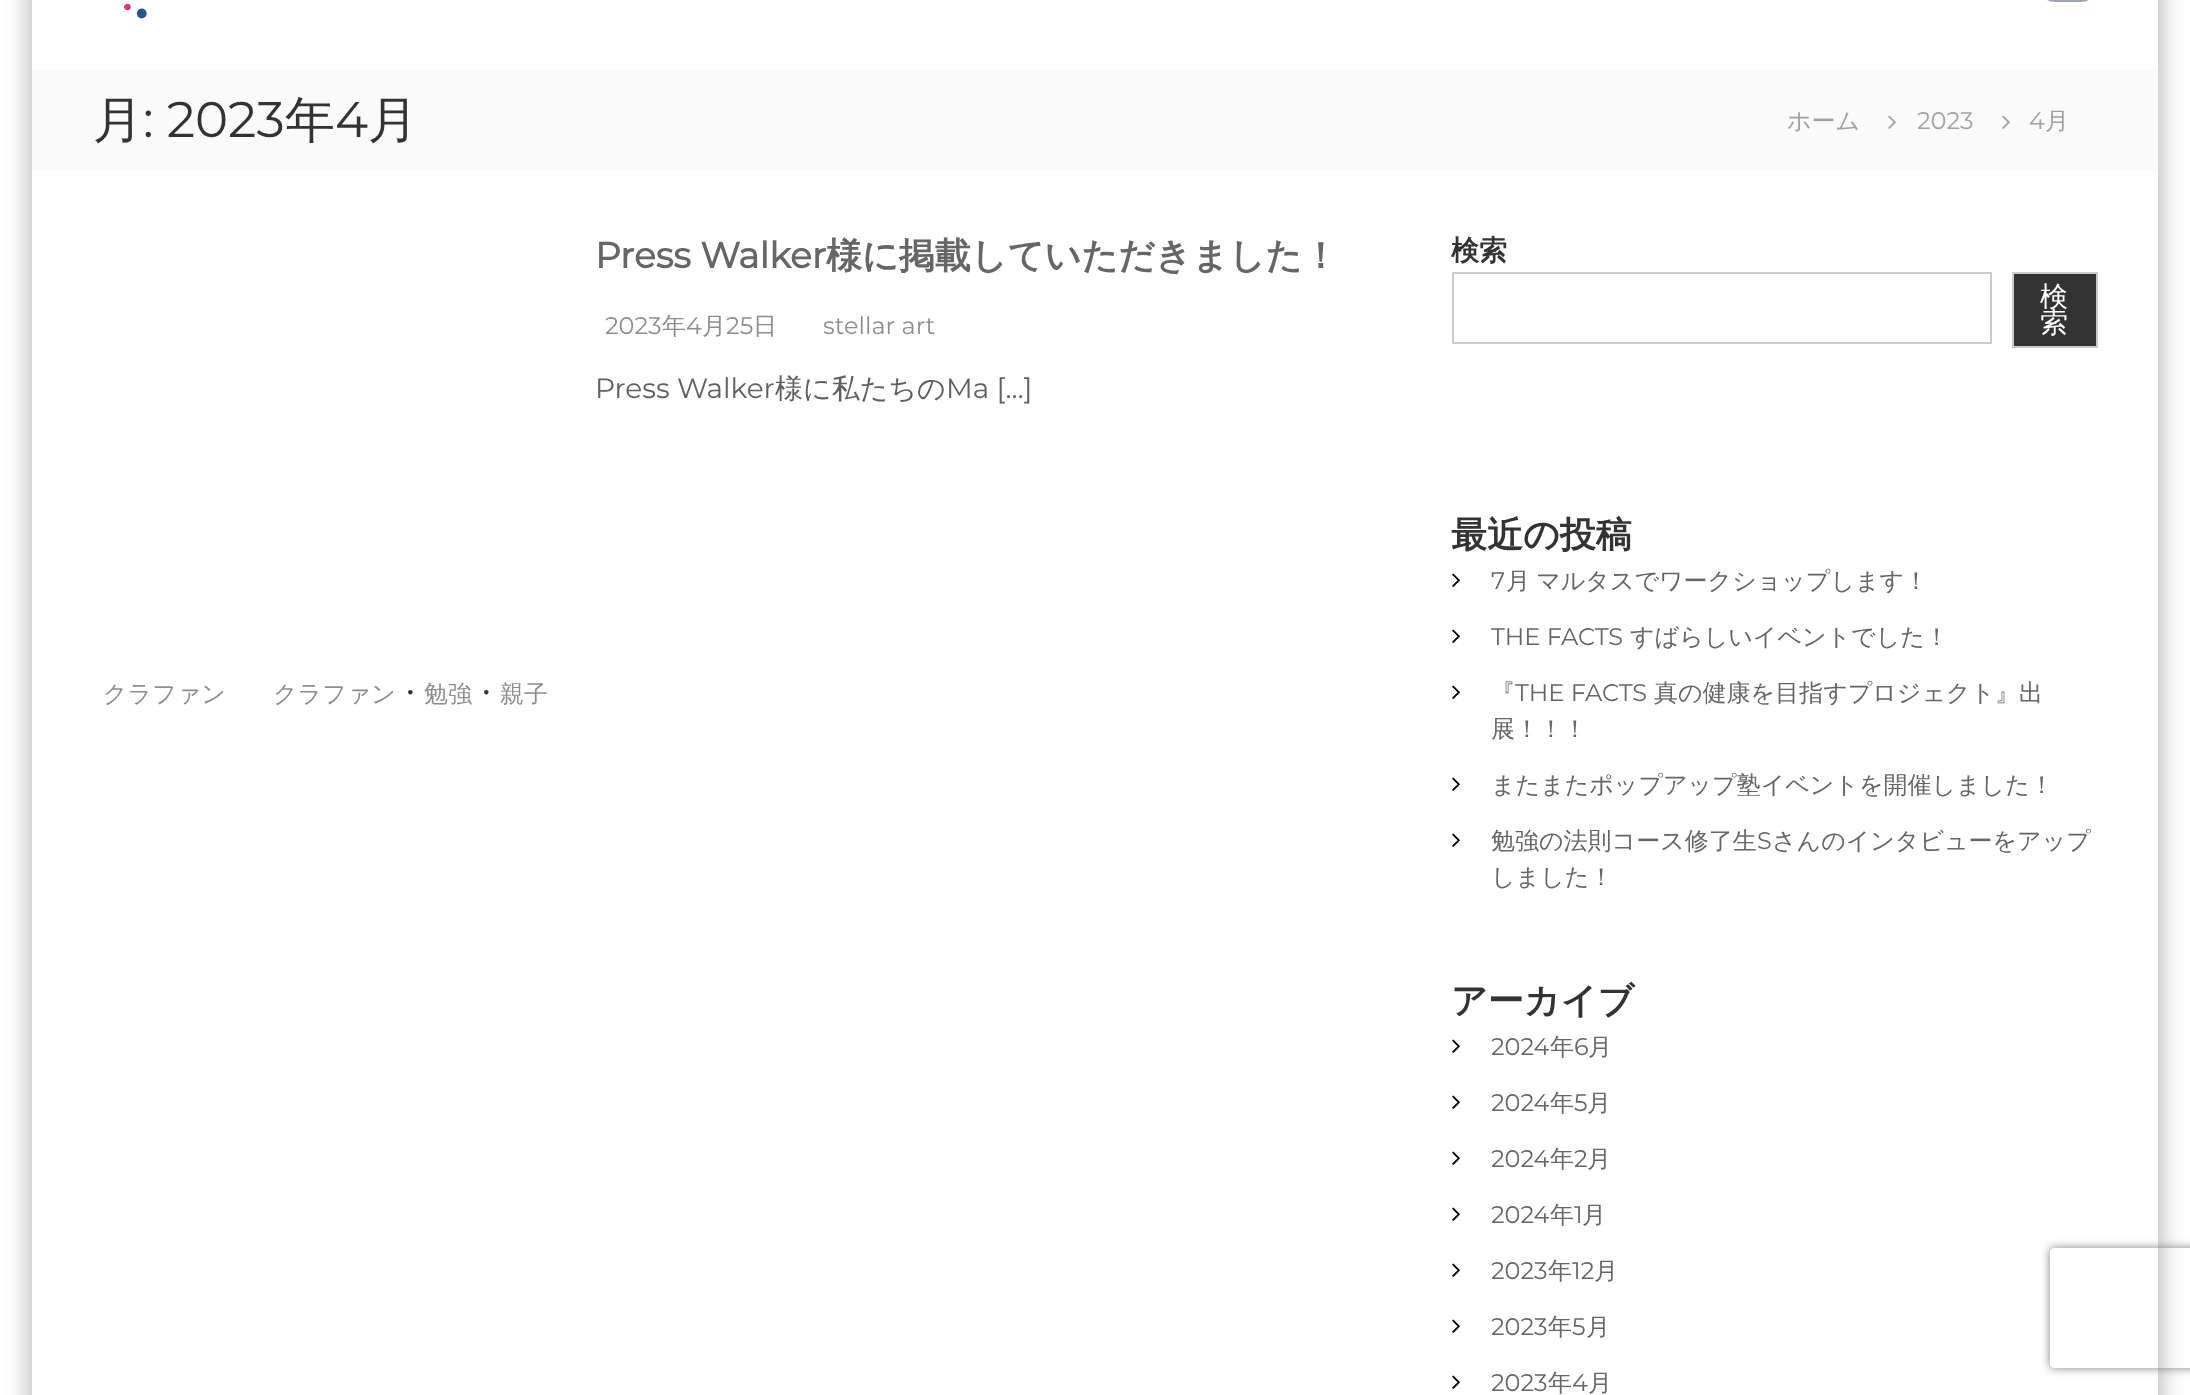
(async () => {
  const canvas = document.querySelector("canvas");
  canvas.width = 2190;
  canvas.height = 1395;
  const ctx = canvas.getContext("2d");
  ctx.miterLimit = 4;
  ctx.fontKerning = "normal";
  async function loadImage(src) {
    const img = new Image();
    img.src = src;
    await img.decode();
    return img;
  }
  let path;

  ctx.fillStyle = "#ffffff";
  ctx.fillRect(0, 0, 2190, 1395);
  ctx.save();
  path = new Path2D("M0 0H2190V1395H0ZM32-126H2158V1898H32Z");
  ctx.clip(path, "evenodd");
  ctx.fillStyle = "rgba(0, 0, 0, 0.3)";
  ctx.filter = "blur(12px)";
  ctx.beginPath();
  ctx.rect(30, -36, 2130, 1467);
  ctx.fill();
  ctx.filter = "none";
  ctx.restore();
  ctx.beginPath();
  ctx.roundRect(2039, -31, 58, 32, 29);
  ctx.strokeStyle = "#9ca6b2";
  ctx.lineWidth = 2;
  ctx.stroke();
  ctx.drawImage(await loadImage("img/1.png"), 124, 3, 23, 16);
  ctx.fillStyle = "#fafafa";
  ctx.fillRect(32, 70, 2126, 100);
  ctx.drawImage(await loadImage("img/2.png"), 1888, 115, 8, 14);
  ctx.drawImage(await loadImage("img/2.png"), 2002, 115, 8, 14);
  ctx.strokeStyle = "#cccccc";
  ctx.strokeRect(1453, 273, 538, 70);
  ctx.fillStyle = "#333333";
  ctx.beginPath();
  ctx.rect(2013, 273, 84, 74);
  ctx.fill();
  ctx.stroke();
  ctx.drawImage(await loadImage("img/3.png"), 1452, 573, 8, 14);
  ctx.drawImage(await loadImage("img/3.png"), 1452, 629, 8, 14);
  ctx.drawImage(await loadImage("img/3.png"), 1452, 685, 8, 14);
  ctx.drawImage(await loadImage("img/3.png"), 1452, 777, 8, 14);
  ctx.drawImage(await loadImage("img/3.png"), 1452, 833, 8, 14);
  ctx.drawImage(await loadImage("img/3.png"), 1452, 1039, 8, 14);
  ctx.drawImage(await loadImage("img/3.png"), 1452, 1095, 8, 14);
  ctx.drawImage(await loadImage("img/3.png"), 1452, 1151, 8, 14);
  ctx.drawImage(await loadImage("img/3.png"), 1452, 1207, 8, 14);
  ctx.drawImage(await loadImage("img/3.png"), 1452, 1263, 8, 14);
  ctx.drawImage(await loadImage("img/3.png"), 1452, 1319, 8, 14);
  ctx.drawImage(await loadImage("img/3.png"), 1452, 1375, 8, 14);
  ctx.save();
  path = new Path2D("M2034 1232H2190V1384H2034ZM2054 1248H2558C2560 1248 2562 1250 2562 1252V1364C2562 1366 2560 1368 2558 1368H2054C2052 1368 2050 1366 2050 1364V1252C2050 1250 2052 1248 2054 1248Z");
  ctx.clip(path, "evenodd");
  ctx.fillStyle = "#808080";
  ctx.filter = "blur(5px)";
  ctx.beginPath();
  ctx.roundRect(2050, 1248, 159, 120, 4);
  ctx.fill();
  ctx.filter = "none";
  ctx.restore();
  ctx.font = "500 50px WenQuanYi Zen Hei";
  ctx.fillText("月", 93, 137);
  ctx.font = "50px Montserrat";
  ctx.fillText(": 2023", 143, 137);
  ctx.font = "500 50px WenQuanYi Zen Hei";
  ctx.fillText("年", 285, 137);
  ctx.font = "50px Montserrat";
  ctx.fillText("4", 335, 137);
  ctx.font = "500 50px WenQuanYi Zen Hei";
  ctx.fillText("月", 368, 137);
  ctx.font = "500 24px WenQuanYi Zen Hei";
  ctx.fillStyle = "#a1a1a1";
  ctx.fillText("ホーム", 1787, 129);
  ctx.font = "24px Montserrat";
  ctx.fillText("2023", 1917, 129);
  ctx.fillText("4", 2029, 129);
  ctx.font = "500 24px WenQuanYi Zen Hei";
  ctx.fillText("月", 2045, 129);
  ctx.font = "bold 36px Montserrat";
  ctx.fillStyle = "#666666";
  ctx.fillText("Press Walker", 595, 268);
  ctx.font = "bold 36px WenQuanYi Zen Hei";
  ctx.fillText("様に掲載していただきました！", 826, 268);
  ctx.font = "24px Montserrat";
  ctx.fillStyle = "#8e8e8e";
  ctx.fillText("2023", 605, 334);
  ctx.font = "500 24px WenQuanYi Zen Hei";
  ctx.fillText("年", 662, 334);
  ctx.font = "24px Montserrat";
  ctx.fillText("4", 686, 334);
  ctx.font = "500 24px WenQuanYi Zen Hei";
  ctx.fillText("月", 702, 334);
  ctx.font = "24px Montserrat";
  ctx.fillText("25", 726, 334);
  ctx.font = "500 24px WenQuanYi Zen Hei";
  ctx.fillText("日", 753, 334);
  ctx.font = "24px Montserrat";
  ctx.fillText("stellar art", 823, 334);
  ctx.font = "28px Montserrat";
  ctx.fillStyle = "#606060";
  ctx.fillText("Press Walker", 595, 398);
  ctx.font = "500 28px WenQuanYi Zen Hei";
  ctx.fillText("様に私たちの", 775, 398);
  ctx.font = "28px Montserrat";
  ctx.fillText("Ma […]", 946, 398);
  ctx.font = "500 24px WenQuanYi Zen Hei";
  ctx.fillStyle = "#8e8e8e";
  ctx.fillText("クラファン", 103, 702);
  ctx.fillText("クラファン", 273, 702);
  ctx.font = "500 28px WenQuanYi Zen Hei";
  ctx.fillStyle = "#333333";
  ctx.fillText("・", 396, 702);
  ctx.font = "500 24px WenQuanYi Zen Hei";
  ctx.fillStyle = "#8e8e8e";
  ctx.fillText("勉強", 424, 702);
  ctx.font = "500 28px WenQuanYi Zen Hei";
  ctx.fillStyle = "#333333";
  ctx.fillText("・", 472, 702);
  ctx.font = "500 24px WenQuanYi Zen Hei";
  ctx.fillStyle = "#8e8e8e";
  ctx.fillText("親子", 500, 702);
  ctx.font = "bold 28px WenQuanYi Zen Hei";
  ctx.fillStyle = "#333333";
  ctx.fillText("検索", 1451, 260);
  ctx.font = "500 28px WenQuanYi Zen Hei";
  ctx.fillStyle = "#ffffff";
  ctx.fillText("検", 2040, 306);
  ctx.fillText("索", 2040, 332);
  ctx.font = "bold 36px WenQuanYi Zen Hei";
  ctx.fillStyle = "#333333";
  ctx.fillText("最近の投稿", 1451, 547);
  ctx.font = "24px Montserrat";
  ctx.fillStyle = "#666666";
  ctx.fillText("7", 1491, 589);
  ctx.wordSpacing = "-1px";
  ctx.font = "500 24px WenQuanYi Zen Hei";
  ctx.fillText("月 マルタスでワークショップします！", 1506, 589);
  ctx.wordSpacing = "0px";
  ctx.font = "24px Montserrat";
  ctx.fillText("THE FACTS", 1491, 645);
  ctx.font = "500 24px WenQuanYi Zen Hei";
  ctx.fillText("すばらしいイベントでした！", 1630, 645);
  ctx.fillText("『", 1491, 701);
  ctx.font = "24px Montserrat";
  ctx.fillText("THE FACTS", 1515, 701);
  ctx.font = "500 24px WenQuanYi Zen Hei";
  for (const [text, x, y] of [
    ["真の健康を目指すプロジェクト』出", 1654, 701],
    ["展！！！", 1491, 737],
    ["またまたポップアップ塾イベントを開催しました！", 1491, 793],
    ["勉強の法則コース修了生", 1491, 849],
  ]) {
    ctx.fillText(text, x, y);
  }
  ctx.font = "24px Montserrat";
  ctx.fillText("S", 1757, 849);
  ctx.font = "500 24px WenQuanYi Zen Hei";
  ctx.fillText("さんのインタビューをアップ", 1772, 849);
  ctx.fillText("しました！", 1491, 885);
  ctx.font = "bold 36px WenQuanYi Zen Hei";
  ctx.fillStyle = "#333333";
  ctx.fillText("アーカイブ", 1451, 1013);
  ctx.font = "24px Montserrat";
  ctx.fillStyle = "#666666";
  ctx.fillText("2024", 1491, 1055);
  ctx.font = "500 24px WenQuanYi Zen Hei";
  ctx.fillText("年", 1550, 1055);
  ctx.font = "24px Montserrat";
  ctx.fillText("6", 1574, 1055);
  ctx.font = "500 24px WenQuanYi Zen Hei";
  ctx.fillText("月", 1588, 1055);
  ctx.font = "24px Montserrat";
  ctx.fillText("2024", 1491, 1111);
  ctx.font = "500 24px WenQuanYi Zen Hei";
  ctx.fillText("年", 1550, 1111);
  ctx.font = "24px Montserrat";
  ctx.fillText("5", 1574, 1111);
  ctx.font = "500 24px WenQuanYi Zen Hei";
  ctx.fillText("月", 1587, 1111);
  ctx.font = "24px Montserrat";
  ctx.fillText("2024", 1491, 1167);
  ctx.font = "500 24px WenQuanYi Zen Hei";
  ctx.fillText("年", 1550, 1167);
  ctx.font = "24px Montserrat";
  ctx.fillText("2", 1574, 1167);
  ctx.font = "500 24px WenQuanYi Zen Hei";
  ctx.fillText("月", 1587, 1167);
  ctx.font = "24px Montserrat";
  ctx.fillText("2024", 1491, 1223);
  ctx.font = "500 24px WenQuanYi Zen Hei";
  ctx.fillText("年", 1550, 1223);
  ctx.font = "24px Montserrat";
  ctx.fillText("1", 1574, 1223);
  ctx.font = "500 24px WenQuanYi Zen Hei";
  ctx.fillText("月", 1582, 1223);
  ctx.font = "24px Montserrat";
  ctx.fillText("2023", 1491, 1279);
  ctx.font = "500 24px WenQuanYi Zen Hei";
  ctx.fillText("年", 1548, 1279);
  ctx.font = "24px Montserrat";
  ctx.fillText("12", 1572, 1279);
  ctx.font = "500 24px WenQuanYi Zen Hei";
  ctx.fillText("月", 1594, 1279);
  ctx.font = "24px Montserrat";
  ctx.fillText("2023", 1491, 1335);
  ctx.font = "500 24px WenQuanYi Zen Hei";
  ctx.fillText("年", 1548, 1335);
  ctx.font = "24px Montserrat";
  ctx.fillText("5", 1572, 1335);
  ctx.font = "500 24px WenQuanYi Zen Hei";
  ctx.fillText("月", 1586, 1335);
  ctx.font = "24px Montserrat";
  ctx.fillText("2023", 1491, 1391);
  ctx.font = "500 24px WenQuanYi Zen Hei";
  ctx.fillText("年", 1548, 1391);
  ctx.font = "24px Montserrat";
  ctx.fillText("4", 1572, 1391);
  ctx.font = "500 24px WenQuanYi Zen Hei";
  ctx.fillText("月", 1588, 1391);
})();
